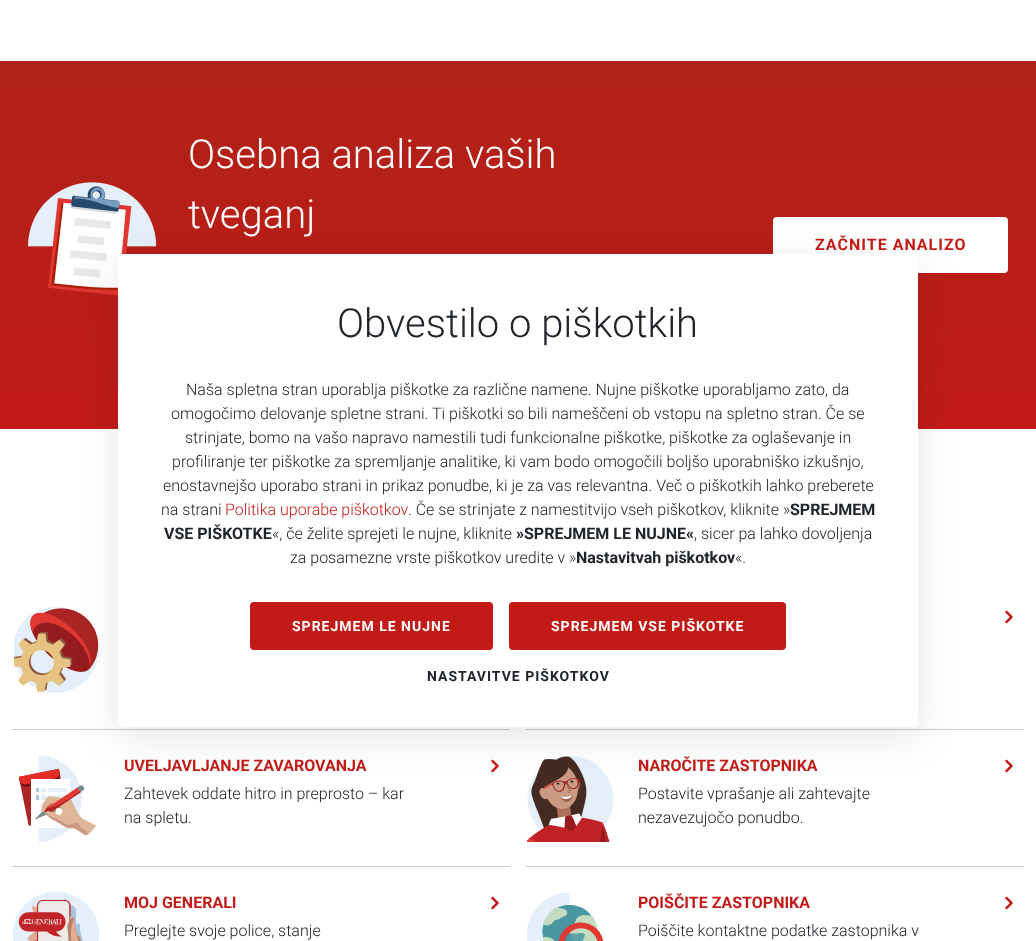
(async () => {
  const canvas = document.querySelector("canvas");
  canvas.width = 1036;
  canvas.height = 941;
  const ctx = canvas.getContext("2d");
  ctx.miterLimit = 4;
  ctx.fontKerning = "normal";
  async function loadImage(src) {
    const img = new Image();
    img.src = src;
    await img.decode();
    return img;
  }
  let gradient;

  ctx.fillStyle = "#ffffff";
  ctx.fillRect(0, 0, 1036, 941);
  gradient = ctx.createLinearGradient(518, 61, 518, 429);
  gradient.addColorStop(0, "#af2219");
  gradient.addColorStop(1, "#c21b17");
  ctx.fillStyle = gradient;
  ctx.fillRect(0, 61, 1036, 368);
  ctx.drawImage(await loadImage("img/1.png"), 28, 182, 128, 114);
  ctx.fillStyle = "#ffffff";
  ctx.beginPath();
  ctx.roundRect(774, 218, 233, 54, 3);
  ctx.fill();
  ctx.strokeStyle = "#ffffff";
  ctx.lineWidth = 2;
  ctx.stroke();
  ctx.fillStyle = "#cccccc";
  ctx.fillRect(12, 729, 498, 1);
  ctx.drawImage(await loadImage("img/2.png"), 14, 607, 85, 86);
  ctx.fillRect(526, 729, 498, 1);
  ctx.drawImage(await loadImage("img/3.png"), 1005, 610, 8, 14);
  ctx.fillRect(12, 866, 498, 1);
  ctx.drawImage(await loadImage("img/4.png"), 18, 755, 78, 87);
  ctx.drawImage(await loadImage("img/3.png"), 491, 759, 8, 14);
  ctx.fillRect(526, 866, 498, 1);
  ctx.drawImage(await loadImage("img/5.png"), 527, 756, 87, 86);
  ctx.drawImage(await loadImage("img/3.png"), 1005, 759, 8, 14);
  ctx.drawImage(await loadImage("img/6.png"), 12, 891, 88, 50);
  ctx.drawImage(await loadImage("img/3.png"), 491, 896, 8, 14);
  ctx.drawImage(await loadImage("img/7.png"), 526, 892, 78, 49);
  ctx.drawImage(await loadImage("img/3.png"), 1005, 896, 8, 14);
  ctx.fillStyle = "rgba(0, 0, 0, 0.1)";
  ctx.filter = "blur(20px)";
  ctx.beginPath();
  ctx.roundRect(118, 264, 800, 473, 4);
  ctx.fill();
  ctx.filter = "none";
  ctx.fillStyle = "#ffffff";
  ctx.beginPath();
  ctx.roundRect(118, 254, 800, 473, 4);
  ctx.fill();
  ctx.fillStyle = "#c21b17";
  ctx.beginPath();
  ctx.roundRect(251, 603, 241, 46, 3);
  ctx.fill();
  ctx.strokeStyle = "#c21b17";
  ctx.stroke();
  ctx.beginPath();
  ctx.roundRect(510, 603, 275, 46, 3);
  ctx.fill();
  ctx.stroke();
  ctx.font = "300 40px Roboto";
  ctx.fillStyle = "#ffffff";
  ctx.fillText("Osebna analiza vaših", 188, 168);
  ctx.fillText("tveganj", 188, 228);
  ctx.letterSpacing = "1px";
  ctx.font = "bold 16px Roboto";
  ctx.fillStyle = "#c21b17";
  ctx.fillText("ZAČNITE ANALIZO", 815, 250);
  ctx.letterSpacing = "0px";
  ctx.fillText("UVELJAVLJANJE ZAVAROVANJA", 124, 771);
  ctx.font = "300 16px Roboto";
  ctx.fillStyle = "#20252b";
  ctx.fillText("Zahtevek oddate hitro in preprosto – kar", 124, 799);
  ctx.fillText("na spletu.", 124, 823);
  ctx.font = "bold 16px Roboto";
  ctx.fillStyle = "#c21b17";
  ctx.fillText("NAROČITE ZASTOPNIKA", 638, 771);
  ctx.font = "300 16px Roboto";
  ctx.fillStyle = "#20252b";
  ctx.fillText("Postavite vprašanje ali zahtevajte", 638, 799);
  ctx.fillText("nezavezujočo ponudbo.", 638, 823);
  ctx.font = "bold 16px Roboto";
  ctx.fillStyle = "#c21b17";
  ctx.fillText("MOJ GENERALI", 124, 908);
  ctx.font = "300 16px Roboto";
  ctx.fillStyle = "#20252b";
  ctx.fillText("Preglejte svoje police, stanje", 124, 936);
  ctx.font = "bold 16px Roboto";
  ctx.fillStyle = "#c21b17";
  ctx.fillText("POIŠČITE ZASTOPNIKA", 638, 908);
  ctx.font = "300 16px Roboto";
  ctx.fillStyle = "#20252b";
  ctx.fillText("Poiščite kontaktne podatke zastopnika v", 638, 936);
  ctx.font = "300 40px Roboto";
  ctx.fillText("Obvestilo o piškotkih", 337, 337);
  ctx.font = "300 16px Roboto";
  for (const [text, x, y] of [
    ["Naša spletna stran uporablja piškotke za različne namene. Nujne piškotke uporabljamo zato, da", 186, 395],
    ["omogočimo delovanje spletne strani. Ti piškotki so bili nameščeni ob vstopu na spletno stran. Če se", 171, 419],
    ["strinjate, bomo na vašo napravo namestili tudi funkcionalne piškotke, piškotke za oglaševanje in", 185, 443],
    ["profiliranje ter piškotke za spremljanje analitike, ki vam bodo omogočili boljšo uporabniško izkušnjo,", 172, 467],
    ["enostavnejšo uporabo strani in prikaz ponudbe, ki je za vas relevantna. Več o piškotkih lahko preberete", 163, 491],
    ["na strani", 161, 515],
  ]) {
    ctx.fillText(text, x, y);
  }
  ctx.fillStyle = "#c21b17";
  ctx.fillText("Politika uporabe piškotkov", 225, 515);
  ctx.fillStyle = "#20252b";
  ctx.fillText(". Če se strinjate z namestitvijo vseh piškotkov, kliknite »", 408, 515);
  ctx.font = "bold 16px Roboto";
  ctx.fillText("SPREJMEM", 790, 515);
  ctx.fillText("VSE PIŠKOTKE", 164, 539);
  ctx.font = "300 16px Roboto";
  ctx.fillText("«, če želite sprejeti le nujne, kliknite", 272, 539);
  ctx.font = "bold 16px Roboto";
  ctx.fillText("»SPREJMEM LE NUJNE«", 516, 539);
  ctx.font = "300 16px Roboto";
  ctx.fillText(", sicer pa lahko dovoljenja", 694, 539);
  ctx.fillText("za posamezne vrste piškotkov uredite v »", 290, 563);
  ctx.font = "bold 16px Roboto";
  ctx.fillText("Nastavitvah piškotkov", 576, 563);
  ctx.font = "300 16px Roboto";
  ctx.fillText("«.", 735, 563);
  ctx.letterSpacing = "1px";
  ctx.font = "bold 14px Roboto";
  ctx.fillStyle = "#ffffff";
  ctx.fillText("SPREJMEM LE NUJNE", 292, 631);
  ctx.fillText("SPREJMEM VSE PIŠKOTKE", 551, 631);
  ctx.fillStyle = "#20252b";
  ctx.fillText("NASTAVITVE PIŠKOTKOV", 427, 681);
})();
